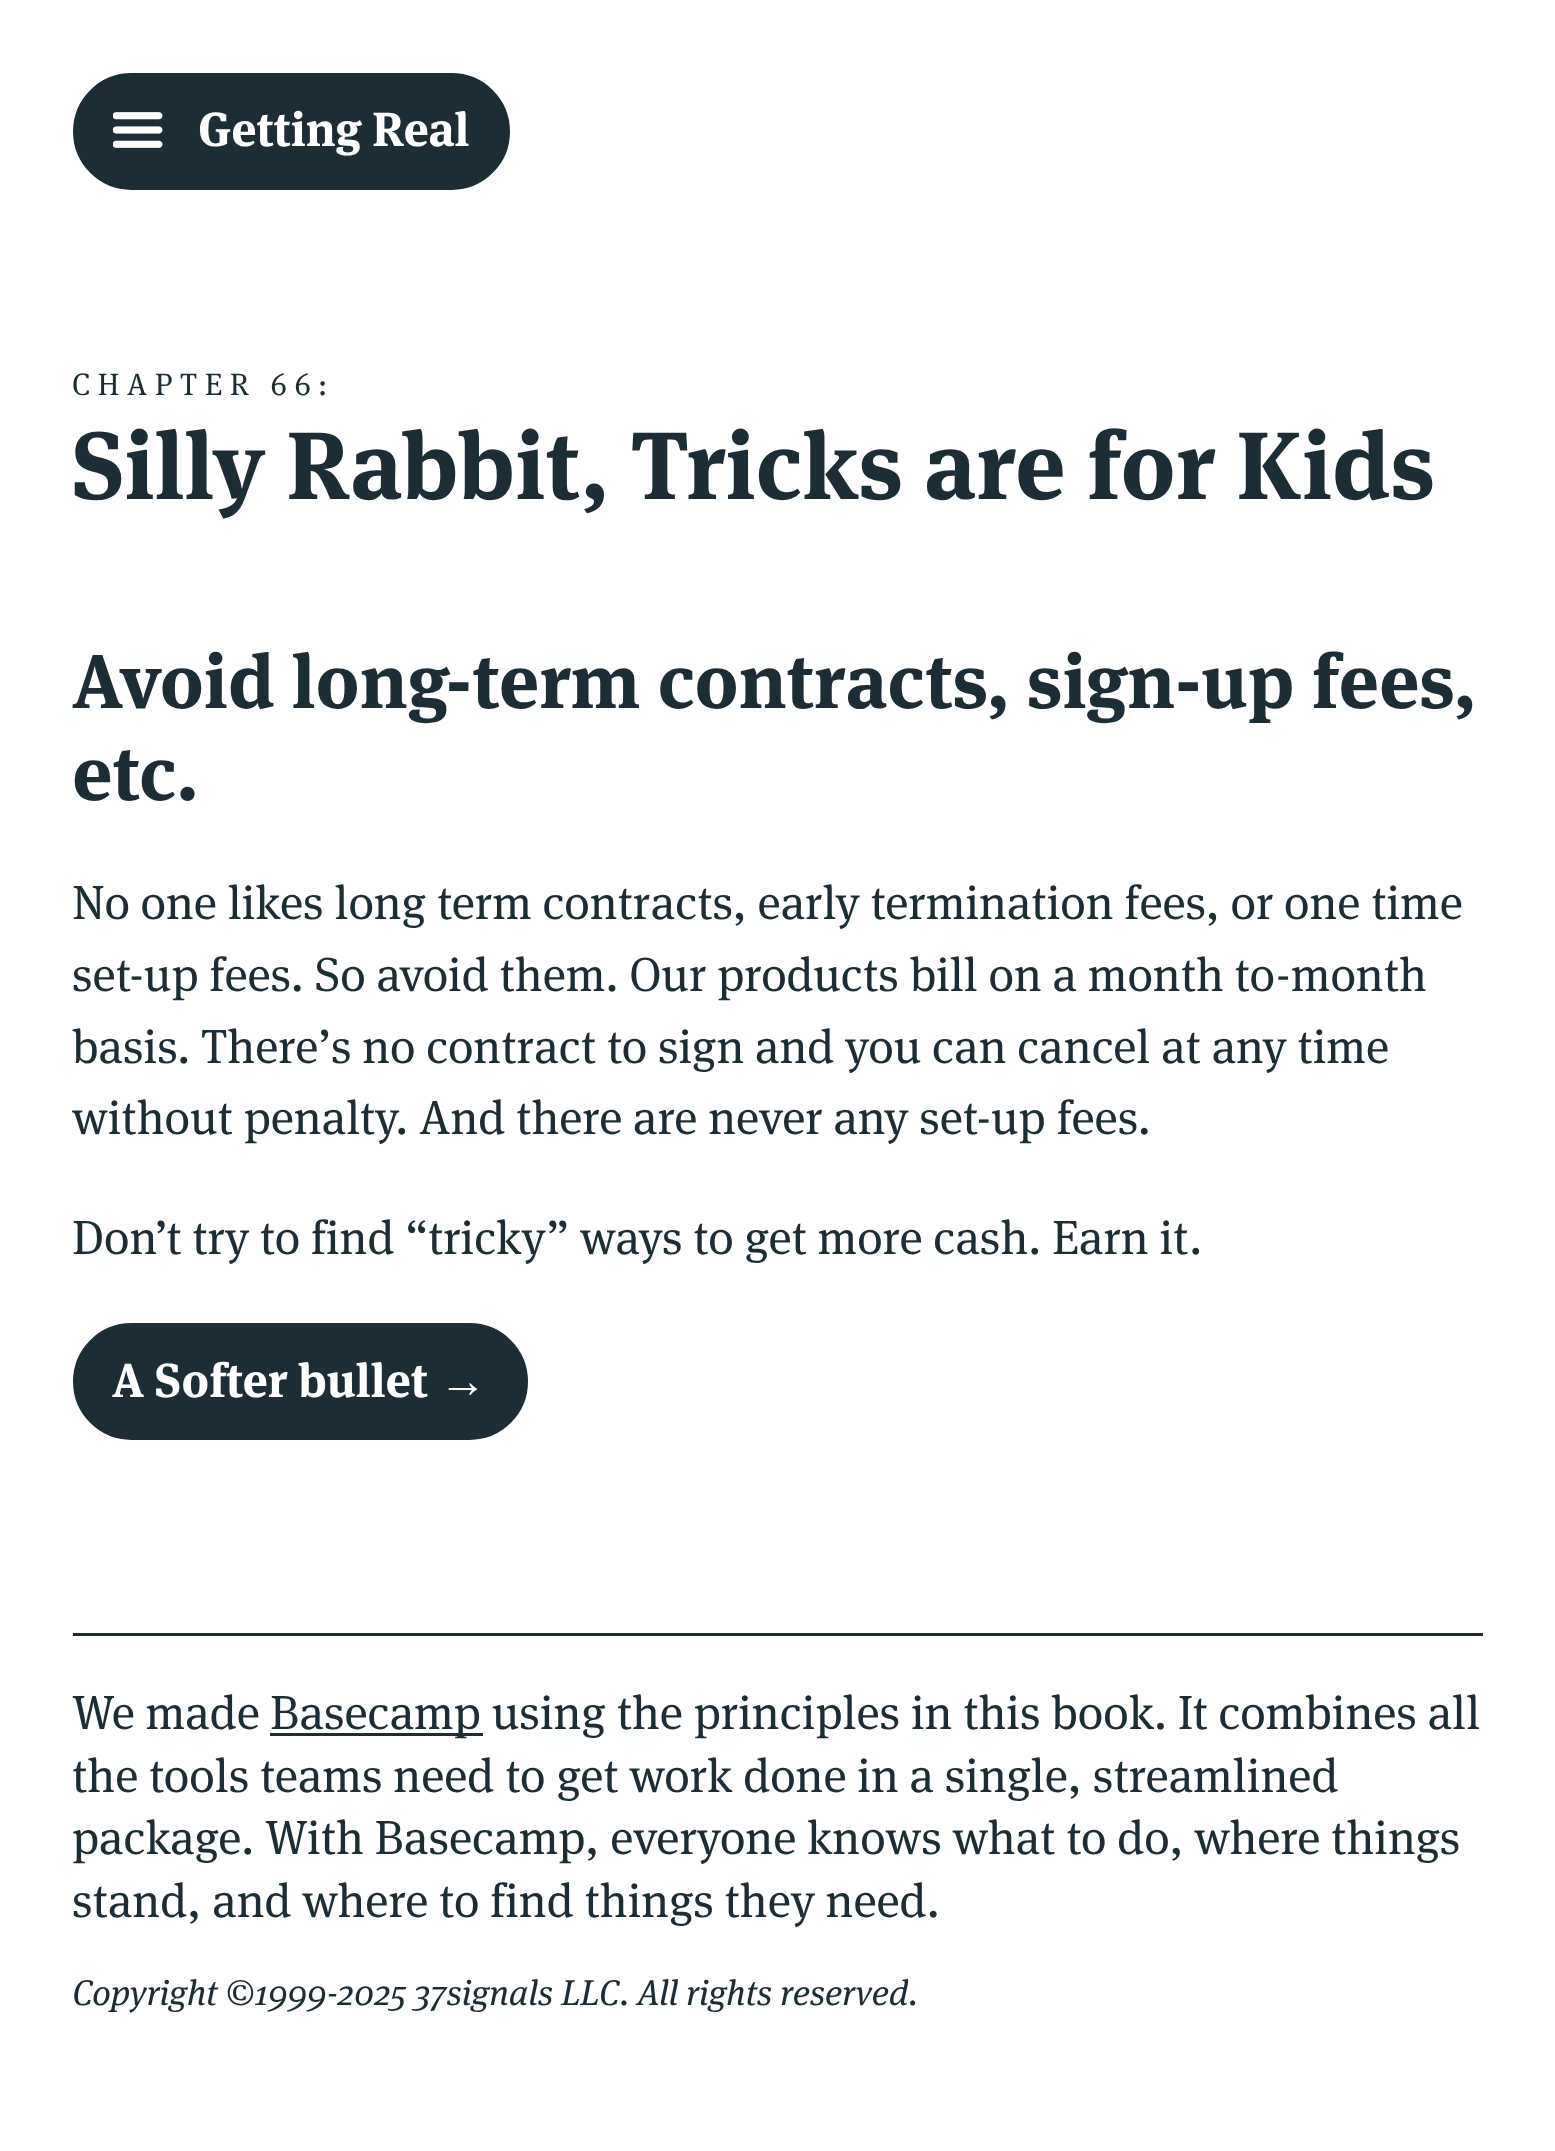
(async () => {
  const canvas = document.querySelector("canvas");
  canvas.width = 1555;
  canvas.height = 2151;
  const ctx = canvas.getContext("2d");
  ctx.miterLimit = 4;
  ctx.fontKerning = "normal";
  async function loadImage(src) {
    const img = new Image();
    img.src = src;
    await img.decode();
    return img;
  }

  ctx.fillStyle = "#ffffff";
  ctx.fillRect(0, 0, 1555, 2151);
  ctx.fillStyle = "#1d2d35";
  ctx.beginPath();
  ctx.roundRect(75.5, 75.5, 432, 112, 56);
  ctx.fill();
  ctx.strokeStyle = "#1d2d35";
  ctx.lineWidth = 5;
  ctx.stroke();
  ctx.drawImage(await loadImage("img/1.png"), 113, 112, 50, 36);
  ctx.beginPath();
  ctx.roundRect(75.5, 1325.5, 450, 112, 56);
  ctx.fill();
  ctx.stroke();
  ctx.fillRect(73, 1633, 1410, 3);
  ctx.fillRect(270, 1733, 213, 3);
  ctx.font = "bold 47.75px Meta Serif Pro";
  ctx.fillStyle = "#ffffff";
  ctx.fillText("Getting Real", 198, 146);
  ctx.letterSpacing = "7.5px";
  ctx.font = "31px Meta Serif Pro";
  ctx.fillStyle = "#1d2d35";
  ctx.fillText("CHAPTER 66:", 72, 395);
  ctx.letterSpacing = "0px";
  ctx.font = "bold 95.5px Meta Serif Pro";
  ctx.fillText("Silly Rabbit, Tricks are for Kids", 72, 499);
  ctx.font = "bold 76.4px Meta Serif Pro";
  ctx.fillText("Avoid long-term contracts, sign-up fees,", 72, 708);
  ctx.fillText("etc.", 72, 800);
  ctx.font = "47.75px Meta Serif Pro";
  for (const [text, x, y] of [
    ["No one likes long term contracts, early termination fees, or one time", 72, 919],
    ["set-up fees. So avoid them. Our products bill on a month to-month", 72, 991],
    ["basis. There’s no contract to sign and you can cancel at any time", 72, 1063],
    ["without penalty. And there are never any set-up fees.", 72, 1134],
    ["Don’t try to find “tricky” ways to get more cash. Earn it.", 72, 1254],
  ]) {
    ctx.fillText(text, x, y);
  }
  ctx.font = "bold 47.75px Meta Serif Pro";
  ctx.fillStyle = "#ffffff";
  ctx.fillText("A Softer bullet", 112, 1397);
  ctx.font = "bold 47.75px Liberation Serif";
  ctx.fillText("→", 439, 1397);
  ctx.font = "47.75px Meta Serif Pro";
  ctx.fillStyle = "#1d2d35";
  for (const [text, x, y] of [
    ["We made", 72, 1729],
    ["Basecamp using the principles in this book. It combines all", 270, 1729],
    ["the tools teams need to get work done in a single, streamlined", 72, 1792],
    ["package. With Basecamp, everyone knows what to do, where things", 72, 1854],
    ["stand, and where to find things they need.", 72, 1917],
  ]) {
    ctx.fillText(text, x, y);
  }
  ctx.font = "italic 35.8px Meta Serif Pro";
  ctx.fillText("Copyright ©1999-2025 37signals LLC. All rights reserved.", 72, 2005);
})();
